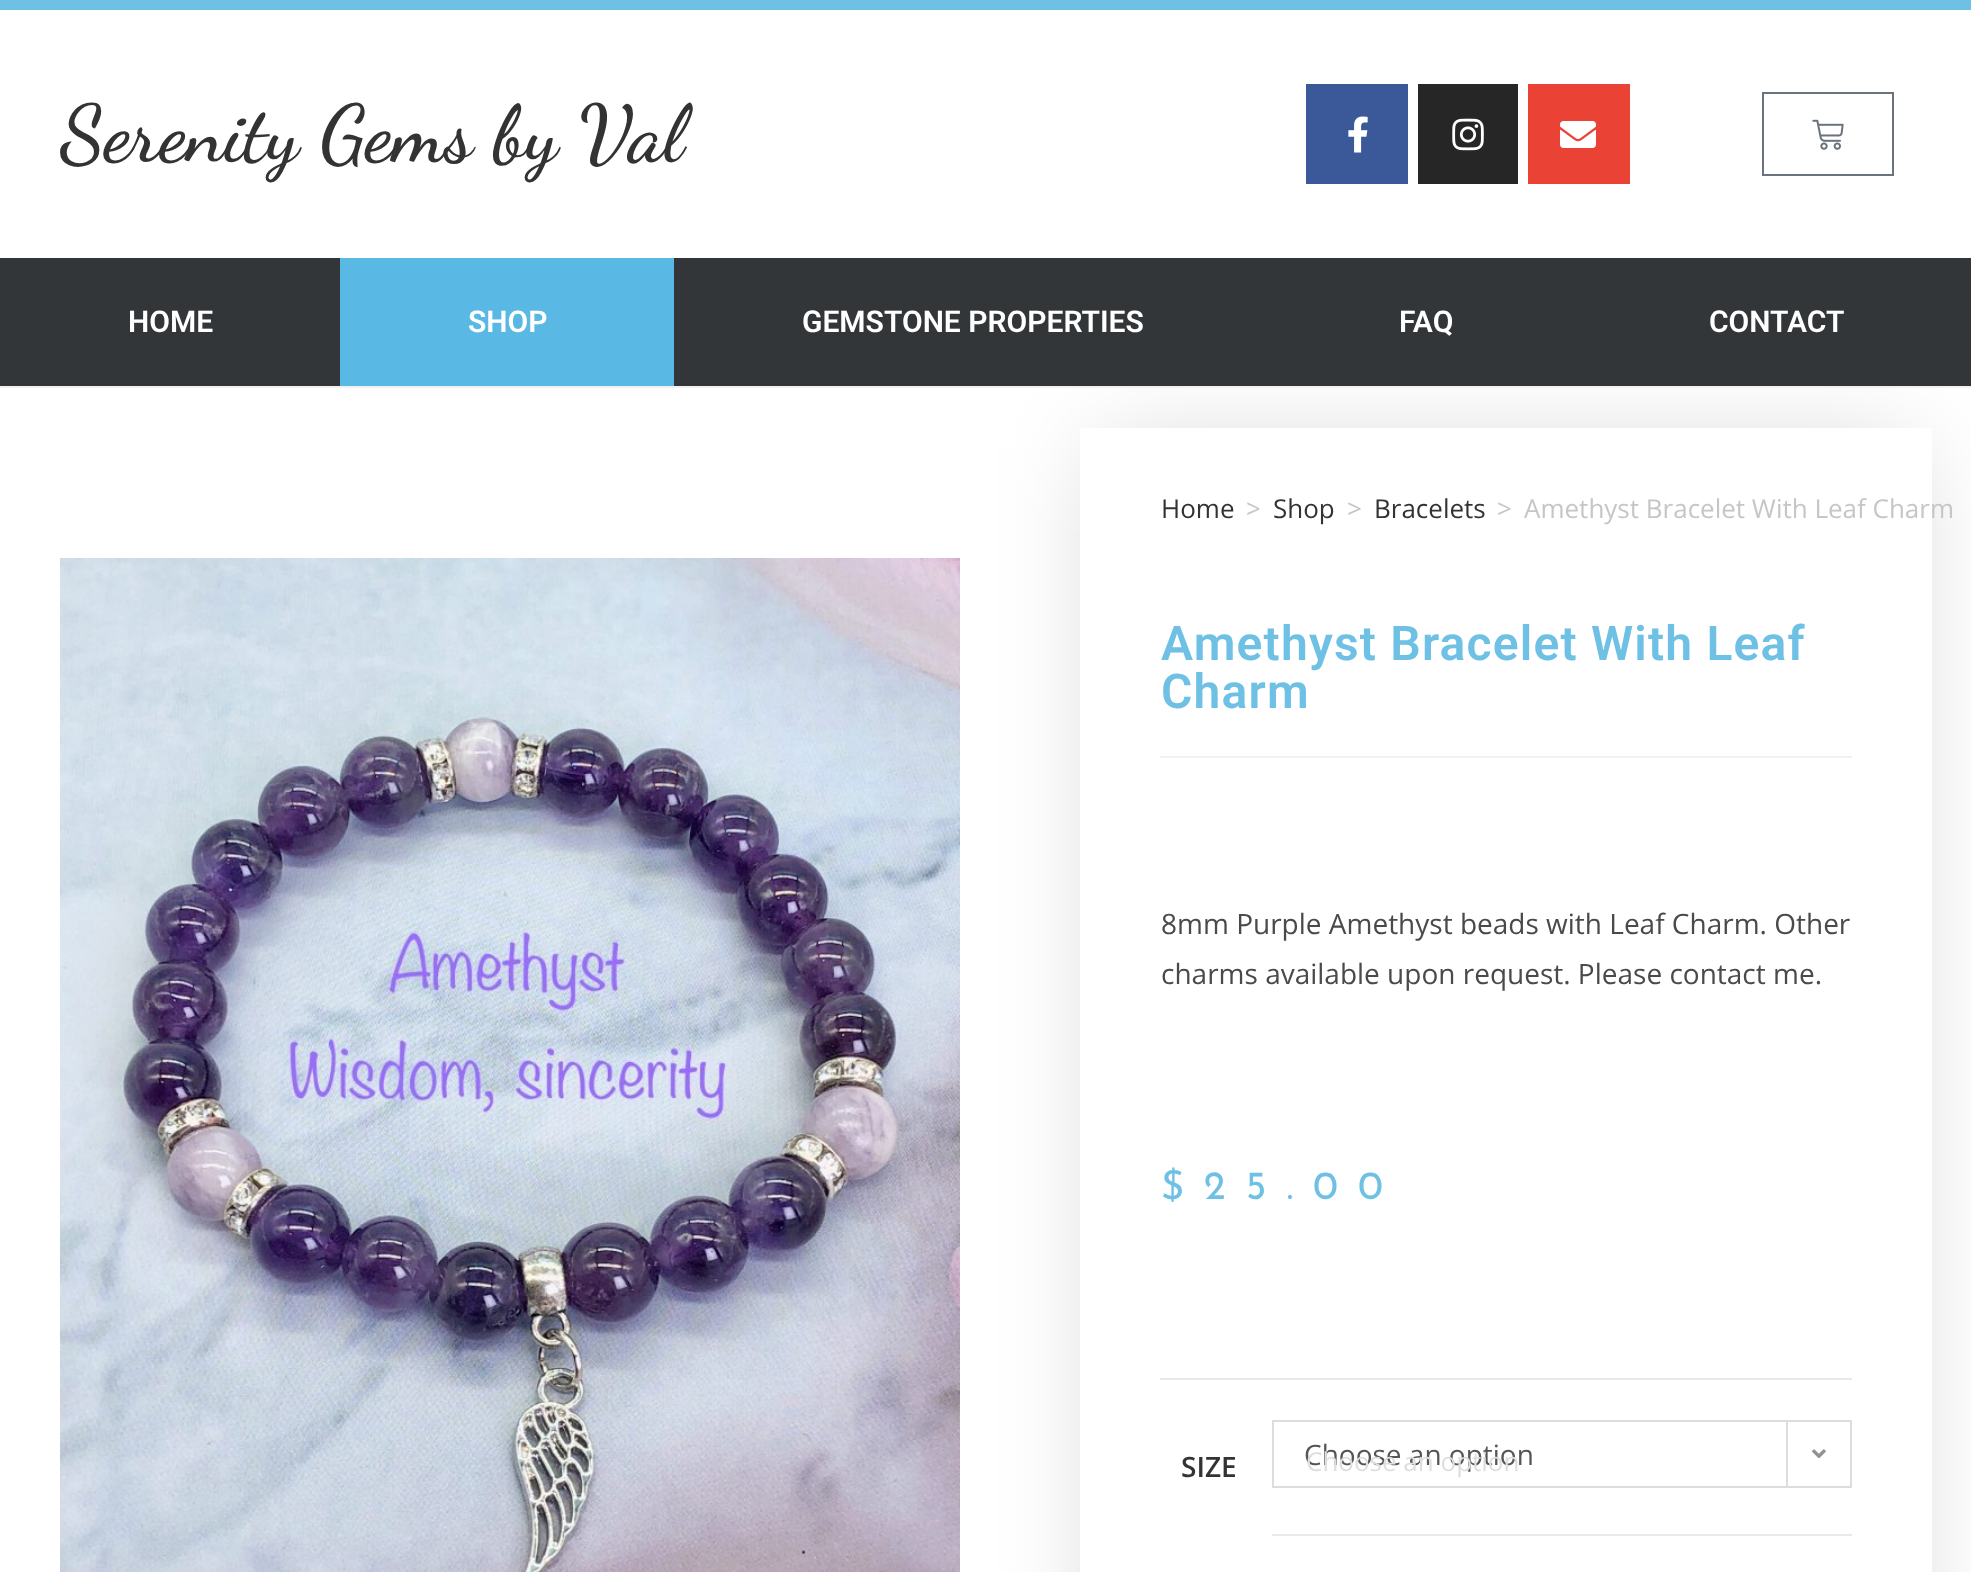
(async () => {
  const canvas = document.querySelector("canvas");
  canvas.width = 1971;
  canvas.height = 1572;
  const ctx = canvas.getContext("2d");
  ctx.miterLimit = 4;
  ctx.fontKerning = "normal";
  async function loadImage(src) {
    const img = new Image();
    img.src = src;
    await img.decode();
    return img;
  }
  let path;

  ctx.fillStyle = "#ffffff";
  ctx.fillRect(0, 0, 1971, 1572);
  ctx.drawImage(await loadImage("img/5.png"), 60, 558, 900, 1014);
  ctx.save();
  path = new Path2D("M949 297H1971V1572H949ZM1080 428H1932V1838H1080Z");
  ctx.clip(path, "evenodd");
  ctx.fillStyle = "rgba(0, 0, 0, 0.17)";
  ctx.filter = "blur(50px)";
  ctx.beginPath();
  ctx.rect(1100, 448, 812, 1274);
  ctx.fill();
  ctx.filter = "none";
  ctx.restore();
  for (const [x, y, w, h, color] of [
    [0, 386, 1971, 2, "#f1f1f1"],
    [0, 0, 1971, 10, "#6ec1e4"],
    [1306, 84, 102, 100, "#3b5998"],
  ]) {
    ctx.fillStyle = color;
    ctx.fillRect(x, y, w, h);
  }
  ctx.drawImage(await loadImage("img/1.png"), 1348, 116, 20, 37);
  ctx.fillStyle = "#262626";
  ctx.fillRect(1418, 84, 100, 100);
  ctx.drawImage(await loadImage("img/2.png"), 1452, 118, 32, 33);
  ctx.fillStyle = "#ea4335";
  ctx.fillRect(1528, 84, 102, 100);
  ctx.drawImage(await loadImage("img/3.png"), 1560, 121, 36, 27);
  ctx.strokeStyle = "#69727d";
  ctx.lineWidth = 2;
  ctx.strokeRect(1763, 93, 130, 82);
  ctx.drawImage(await loadImage("img/4.png"), 1812, 119, 32, 31);
  for (const [x, y, w, h, color] of [
    [0, 258, 1971, 128, "#333639"],
    [340, 258, 334, 128, "#59b8e4"],
    [1160, 756, 692, 2, "#f1f1f1"],
    [1160, 1378, 692, 2, "#eaeaea"],
    [1272, 1534, 580, 2, "#e9e9e9"],
  ]) {
    ctx.fillStyle = color;
    ctx.fillRect(x, y, w, h);
  }
  ctx.strokeStyle = "#dddddd";
  ctx.strokeRect(1273, 1421, 578, 66);
  ctx.fillStyle = "#dddddd";
  ctx.fillRect(1786, 1422, 2, 64);
  ctx.drawImage(await loadImage("img/6.png"), 1812, 1449, 14, 10);
  ctx.font = "600 80px Dancing Script";
  ctx.fillStyle = "#333333";
  ctx.fillText("Serenity Gems by Val", 60, 160);
  ctx.font = "600 30px Roboto";
  ctx.fillStyle = "#ffffff";
  for (const [text, x, y] of [
    ["HOME", 128, 332],
    ["SHOP", 468, 332],
    ["GEMSTONE PROPERTIES", 802, 332],
    ["FAQ", 1399, 332],
    ["CONTACT", 1709, 332],
  ]) {
    ctx.fillText(text, x, y);
  }
  ctx.font = "26px Open Sans";
  ctx.fillStyle = "#333333";
  ctx.fillText("Home", 1161, 518);
  ctx.fillStyle = "#c6c6c6";
  ctx.fillText(">", 1246, 518);
  ctx.fillStyle = "#333333";
  ctx.fillText("Shop", 1273, 518);
  ctx.fillStyle = "#c6c6c6";
  ctx.fillText(">", 1347, 518);
  ctx.fillStyle = "#333333";
  ctx.fillText("Bracelets", 1374, 518);
  ctx.fillStyle = "#c6c6c6";
  ctx.fillText(">", 1497, 518);
  ctx.fillText("Amethyst Bracelet With Leaf Charm", 1524, 518);
  ctx.letterSpacing = "1.2px";
  ctx.font = "600 48px Roboto";
  ctx.fillStyle = "#6ec1e4";
  ctx.fillText("Amethyst Bracelet With Leaf", 1161, 660);
  ctx.fillText("Charm", 1161, 708);
  ctx.letterSpacing = "0px";
  ctx.font = "28px Open Sans";
  ctx.fillStyle = "#4a4a4a";
  ctx.fillText("8mm Purple Amethyst beads with Leaf Charm. Other", 1161, 934);
  ctx.fillText("charms available upon request. Please contact me.", 1161, 984);
  ctx.letterSpacing = "20px";
  ctx.font = "40px Josefin Sans";
  ctx.fillStyle = "#6ec1e4";
  ctx.fillText("$25.00", 1161, 1199);
  ctx.letterSpacing = "0px";
  ctx.font = "600 28px Open Sans";
  ctx.fillStyle = "#333333";
  ctx.fillText("SIZE", 1181, 1477);
  ctx.font = "28px Open Sans";
  ctx.fillStyle = "#555555";
  ctx.fillText("Choose an option", 1304, 1465);
  ctx.font = "26px Open Sans";
  ctx.fillStyle = "#dedede";
  ctx.fillText("Choose an option", 1306, 1471);
})();
